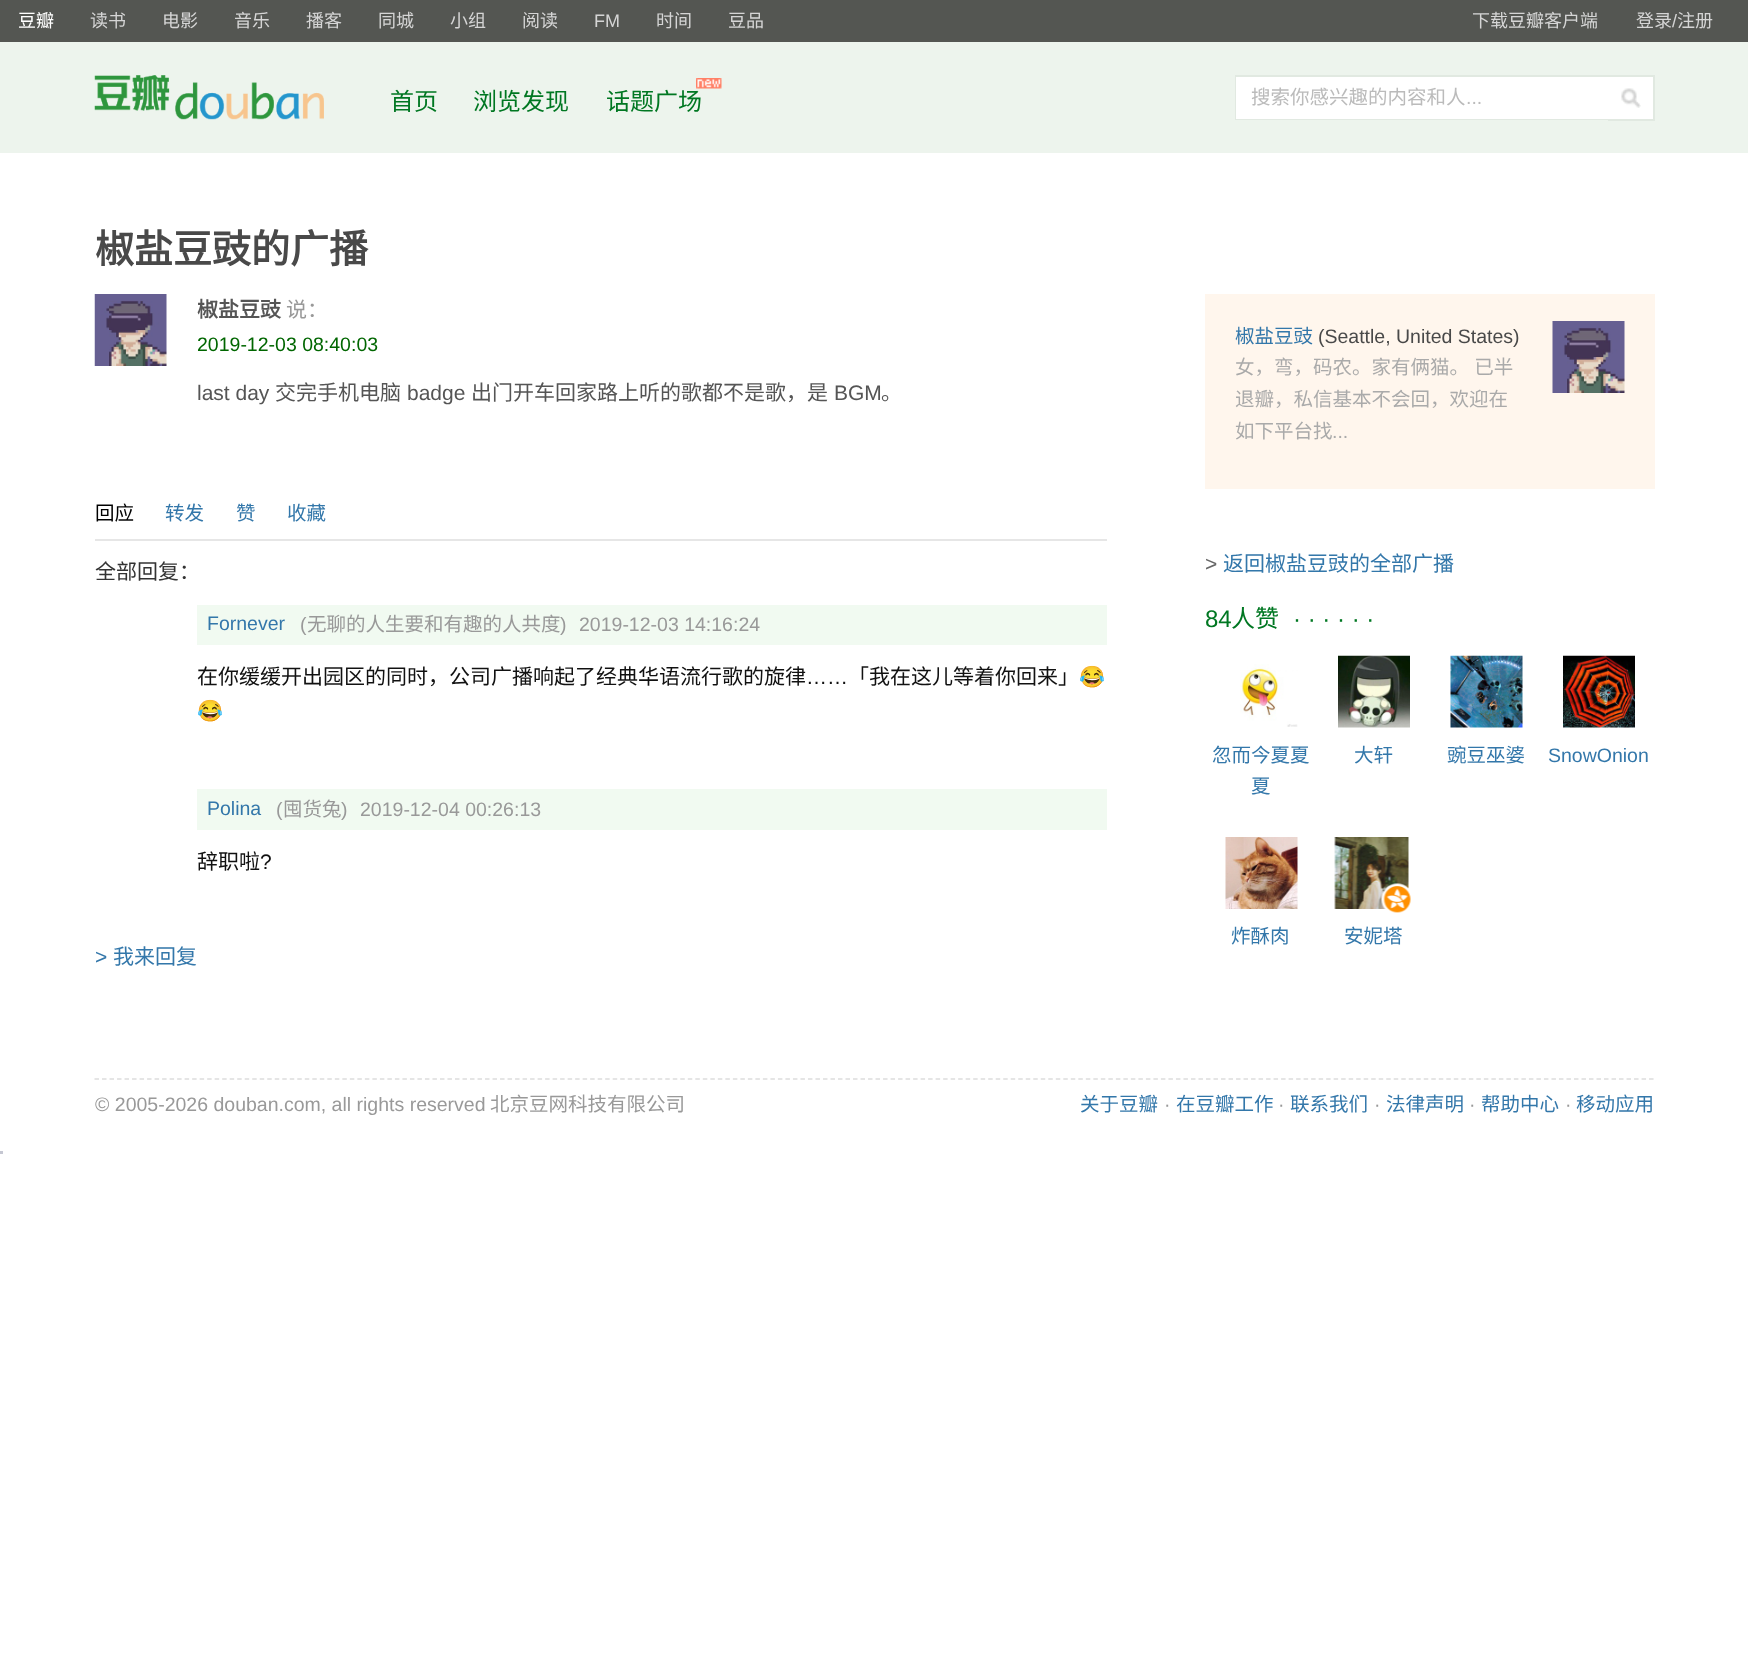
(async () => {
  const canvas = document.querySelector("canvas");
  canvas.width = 1748;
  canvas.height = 1664;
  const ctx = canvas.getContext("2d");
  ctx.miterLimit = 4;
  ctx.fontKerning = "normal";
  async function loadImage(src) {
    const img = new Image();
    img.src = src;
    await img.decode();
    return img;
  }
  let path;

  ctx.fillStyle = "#ffffff";
  ctx.fillRect(0, 0, 1748, 1664);
  ctx.fillStyle = "#545652";
  ctx.fillRect(0, 0, 1748, 42);
  ctx.fillStyle = "#edf4ed";
  ctx.fillRect(0, 42, 1748, 111);
  ctx.drawImage(await loadImage("img/1.png"), 94, 75, 230, 45);
  ctx.drawImage(await loadImage("img/2.png"), 696, 78, 26, 11);
  ctx.strokeStyle = "#e1e9e1";
  ctx.lineWidth = 2;
  ctx.strokeRect(1236, 76, 418, 43);
  ctx.fillStyle = "#ffffff";
  ctx.fillRect(1236, 77, 417, 42);
  ctx.fillStyle = "#e1e9e1";
  ctx.fillRect(1608, 120, 47, 1);
  ctx.drawImage(await loadImage("img/3.png"), 1621, 88, 20, 20);
  ctx.drawImage(await loadImage("img/4.png"), 94, 294, 73, 72);
  for (const [x, y, w, h, color] of [
    [95, 539, 1012, 2, "#e6e6e6"],
    [197, 605, 910, 40, "#f1faf1"],
    [197, 789, 910, 41, "#f1faf1"],
    [1205, 294, 450, 195, "#fff6ed"],
  ]) {
    ctx.fillStyle = color;
    ctx.fillRect(x, y, w, h);
  }
  ctx.drawImage(await loadImage("img/5.png"), 1552, 321, 73, 72);
  ctx.drawImage(await loadImage("img/6.png"), 1240, 664, 58, 63);
  ctx.drawImage(await loadImage("img/7.png"), 1338, 655, 72, 73);
  ctx.drawImage(await loadImage("img/8.png"), 1450, 655, 73, 73);
  ctx.drawImage(await loadImage("img/9.png"), 1563, 655, 72, 73);
  ctx.drawImage(await loadImage("img/10.png"), 1225, 837, 73, 72);
  ctx.drawImage(await loadImage("img/11.png"), 1334, 837, 77, 76);
  path = new Path2D("M94.5 1079H1654.5");
  ctx.strokeStyle = "#dddddd";
  ctx.lineWidth = 1.5;
  ctx.setLineDash([4.5, 3.01]);
  ctx.stroke(path);
  ctx.fillStyle = "#c5c7d2";
  ctx.fillRect(0, 1151, 3, 3);
  ctx.font = "18px Noto Sans CJK SC";
  ctx.fillStyle = "#ffffff";
  ctx.fillText("豆瓣", 18, 27);
  ctx.fillStyle = "#d5d5d5";
  for (const [text, x, y] of [
    ["读书", 90, 27],
    ["电影", 162, 27],
    ["音乐", 234, 27],
    ["播客", 306, 27],
    ["同城", 378, 27],
    ["小组", 450, 27],
    ["阅读", 522, 27],
  ]) {
    ctx.fillText(text, x, y);
  }
  ctx.font = "18px Liberation Sans";
  ctx.fillText("FM", 594, 27);
  ctx.font = "18px Noto Sans CJK SC";
  for (const [text, x, y] of [
    ["时间", 656, 27],
    ["豆品", 728, 27],
    ["下载豆瓣客户端", 1472, 27],
    ["登录", 1636, 27],
  ]) {
    ctx.fillText(text, x, y);
  }
  ctx.font = "18px Liberation Sans";
  ctx.fillText("/", 1672, 27);
  ctx.font = "18px Noto Sans CJK SC";
  ctx.fillText("注册", 1677, 27);
  ctx.font = "24px Noto Sans CJK SC";
  ctx.fillStyle = "#007722";
  for (const [text, x, y] of [
    ["首页", 390, 110],
    ["浏览发现", 473, 110],
    ["话题广场", 606, 110],
  ]) {
    ctx.fillText(text, x, y);
  }
  ctx.font = "19.5px Noto Sans CJK SC";
  ctx.fillStyle = "#bbbbbb";
  ctx.fillText("搜索你感兴趣的内容和人", 1251, 104);
  ctx.font = "19.5px Liberation Sans";
  ctx.fillText("...", 1466, 104);
  ctx.font = "bold 39px Noto Sans CJK SC";
  ctx.fillStyle = "#494949";
  ctx.fillText("椒盐豆豉的广播", 95, 263);
  ctx.font = "bold 21px Noto Sans CJK SC";
  ctx.fillStyle = "#555555";
  ctx.fillText("椒盐豆豉", 197, 317);
  ctx.font = "21px Noto Sans CJK SC";
  ctx.fillStyle = "#999999";
  ctx.fillText("说：", 286, 317);
  ctx.font = "19.5px Liberation Sans";
  ctx.fillStyle = "#006600";
  ctx.fillText("2019-12-03 08:40:03", 197, 351);
  ctx.font = "21px Liberation Sans";
  ctx.fillStyle = "#555555";
  ctx.fillText("last day", 197, 400);
  ctx.font = "21px Noto Sans CJK SC";
  ctx.fillText("交完手机电脑", 275, 400);
  ctx.font = "21px Liberation Sans";
  ctx.fillText("badge", 407, 400);
  ctx.font = "21px Noto Sans CJK SC";
  ctx.fillText("出门开车回家路上听的歌都不是歌，是", 471, 400);
  ctx.font = "21px Liberation Sans";
  ctx.fillText("BGM", 834, 400);
  ctx.font = "21px Noto Sans CJK SC";
  ctx.fillText("。", 881, 400);
  ctx.font = "19.5px Noto Sans CJK SC";
  ctx.fillStyle = "#000000";
  ctx.fillText("回应", 95, 520);
  ctx.fillStyle = "#3377aa";
  for (const [text, x, y] of [
    ["转发", 165, 520],
    ["赞", 236, 520],
    ["收藏", 287, 520],
  ]) {
    ctx.fillText(text, x, y);
  }
  ctx.font = "21px Noto Sans CJK SC";
  ctx.fillStyle = "#333333";
  ctx.fillText("全部回复：", 95, 579);
  ctx.font = "19.5px Liberation Sans";
  ctx.fillStyle = "#3377aa";
  ctx.fillText("Fornever", 207, 630);
  ctx.fillStyle = "#999999";
  ctx.fillText("(", 300, 631);
  ctx.font = "19.5px Noto Sans CJK SC";
  ctx.fillText("无聊的人生要和有趣的人共度", 307, 631);
  ctx.font = "19.5px Liberation Sans";
  ctx.fillText(")", 560, 631);
  ctx.fillText("2019-12-03 14:16:24", 579, 631);
  ctx.font = "21px Noto Sans CJK SC";
  ctx.fillStyle = "#111111";
  ctx.fillText("在你缓缓开出园区的同时，公司广播响起了经典华语流行歌的旋律", 197, 684);
  ctx.font = "21px Liberation Sans";
  ctx.fillText("……", 806, 684);
  ctx.font = "21px Noto Sans CJK SC";
  ctx.fillText("「我在这儿等着你回来」", 848, 684);
  ctx.font = "21px Noto Color Emoji";
  ctx.fillText("😂", 1079, 684);
  ctx.fillText("😂", 197, 718);
  ctx.font = "19.5px Liberation Sans";
  ctx.fillStyle = "#3377aa";
  ctx.fillText("Polina", 207, 815);
  ctx.fillStyle = "#999999";
  ctx.fillText("(", 276, 816);
  ctx.font = "19.5px Noto Sans CJK SC";
  ctx.fillText("囤货兔", 283, 816);
  ctx.font = "19.5px Liberation Sans";
  ctx.fillText(")", 341, 816);
  ctx.fillText("2019-12-04 00:26:13", 360, 816);
  ctx.font = "21px Noto Sans CJK SC";
  ctx.fillStyle = "#111111";
  ctx.fillText("辞职啦", 197, 869);
  ctx.font = "21px Liberation Sans";
  ctx.fillText("?", 260, 869);
  ctx.fillStyle = "#3377aa";
  ctx.fillText(">", 95, 964);
  ctx.font = "21px Noto Sans CJK SC";
  ctx.fillText("我来回复", 113, 964);
  ctx.font = "19.5px Noto Sans CJK SC";
  ctx.fillText("椒盐豆豉", 1235, 343);
  ctx.font = "19.5px Liberation Sans";
  ctx.fillStyle = "#494949";
  ctx.fillText("(Seattle, United States)", 1318, 343);
  ctx.wordSpacing = "1px";
  ctx.font = "19.5px Noto Sans CJK SC";
  ctx.fillStyle = "#aaaaaa";
  ctx.fillText("女，弯，码农。家有俩猫。 已半", 1235, 374);
  ctx.wordSpacing = "0px";
  ctx.fillText("退瓣，私信基本不会回，欢迎在", 1235, 406);
  ctx.fillText("如下平台找", 1235, 438);
  ctx.font = "19.5px Liberation Sans";
  ctx.fillText("...", 1332, 438);
  ctx.font = "21px Liberation Sans";
  ctx.fillStyle = "#666666";
  ctx.fillText(">", 1205, 571);
  ctx.font = "21px Noto Sans CJK SC";
  ctx.fillStyle = "#3377aa";
  ctx.fillText("返回椒盐豆豉的全部广播", 1223, 571);
  ctx.font = "24px Liberation Sans";
  ctx.fillStyle = "#007722";
  ctx.fillText("84", 1205, 627);
  ctx.font = "24px Noto Sans CJK SC";
  ctx.fillText("人赞", 1231, 627);
  ctx.font = "24px Liberation Sans";
  ctx.fillText("· · · · · ·", 1293, 627);
  ctx.font = "19.5px Noto Sans CJK SC";
  ctx.fillStyle = "#3377aa";
  for (const [text, x, y] of [
    ["忽而今夏夏", 1212, 762],
    ["夏", 1251, 793],
    ["大轩", 1354, 762],
    ["豌豆巫婆", 1447, 762],
  ]) {
    ctx.fillText(text, x, y);
  }
  ctx.font = "19.5px Liberation Sans";
  ctx.fillText("SnowOnion", 1548, 762);
  ctx.font = "19.5px Noto Sans CJK SC";
  ctx.fillText("炸酥肉", 1231, 943);
  ctx.fillText("安妮塔", 1344, 943);
  ctx.font = "19.5px Liberation Sans";
  ctx.fillStyle = "#999999";
  ctx.fillText("© 2005-2026 douban.com, all rights reserved", 95, 1111);
  ctx.font = "19.5px Noto Sans CJK SC";
  ctx.fillText("北京豆网科技有限公司", 490, 1111);
  ctx.fillStyle = "#3377aa";
  ctx.fillText("关于豆瓣", 1080, 1111);
  ctx.font = "19.5px Liberation Sans";
  ctx.fillStyle = "#999999";
  ctx.fillText("·", 1164, 1111);
  ctx.font = "19.5px Noto Sans CJK SC";
  ctx.fillStyle = "#3377aa";
  ctx.fillText("在豆瓣工作", 1176, 1111);
  ctx.font = "19.5px Liberation Sans";
  ctx.fillStyle = "#999999";
  ctx.fillText("·", 1278, 1111);
  ctx.font = "19.5px Noto Sans CJK SC";
  ctx.fillStyle = "#3377aa";
  ctx.fillText("联系我们", 1290, 1111);
  ctx.font = "19.5px Liberation Sans";
  ctx.fillStyle = "#999999";
  ctx.fillText("·", 1374, 1111);
  ctx.font = "19.5px Noto Sans CJK SC";
  ctx.fillStyle = "#3377aa";
  ctx.fillText("法律声明", 1386, 1111);
  ctx.font = "19.5px Liberation Sans";
  ctx.fillStyle = "#999999";
  ctx.fillText("·", 1469, 1111);
  ctx.font = "19.5px Noto Sans CJK SC";
  ctx.fillStyle = "#3377aa";
  ctx.fillText("帮助中心", 1481, 1111);
  ctx.font = "19.5px Liberation Sans";
  ctx.fillStyle = "#999999";
  ctx.fillText("·", 1565, 1111);
  ctx.font = "19.5px Noto Sans CJK SC";
  ctx.fillStyle = "#3377aa";
  ctx.fillText("移动应用", 1576, 1111);
})();
